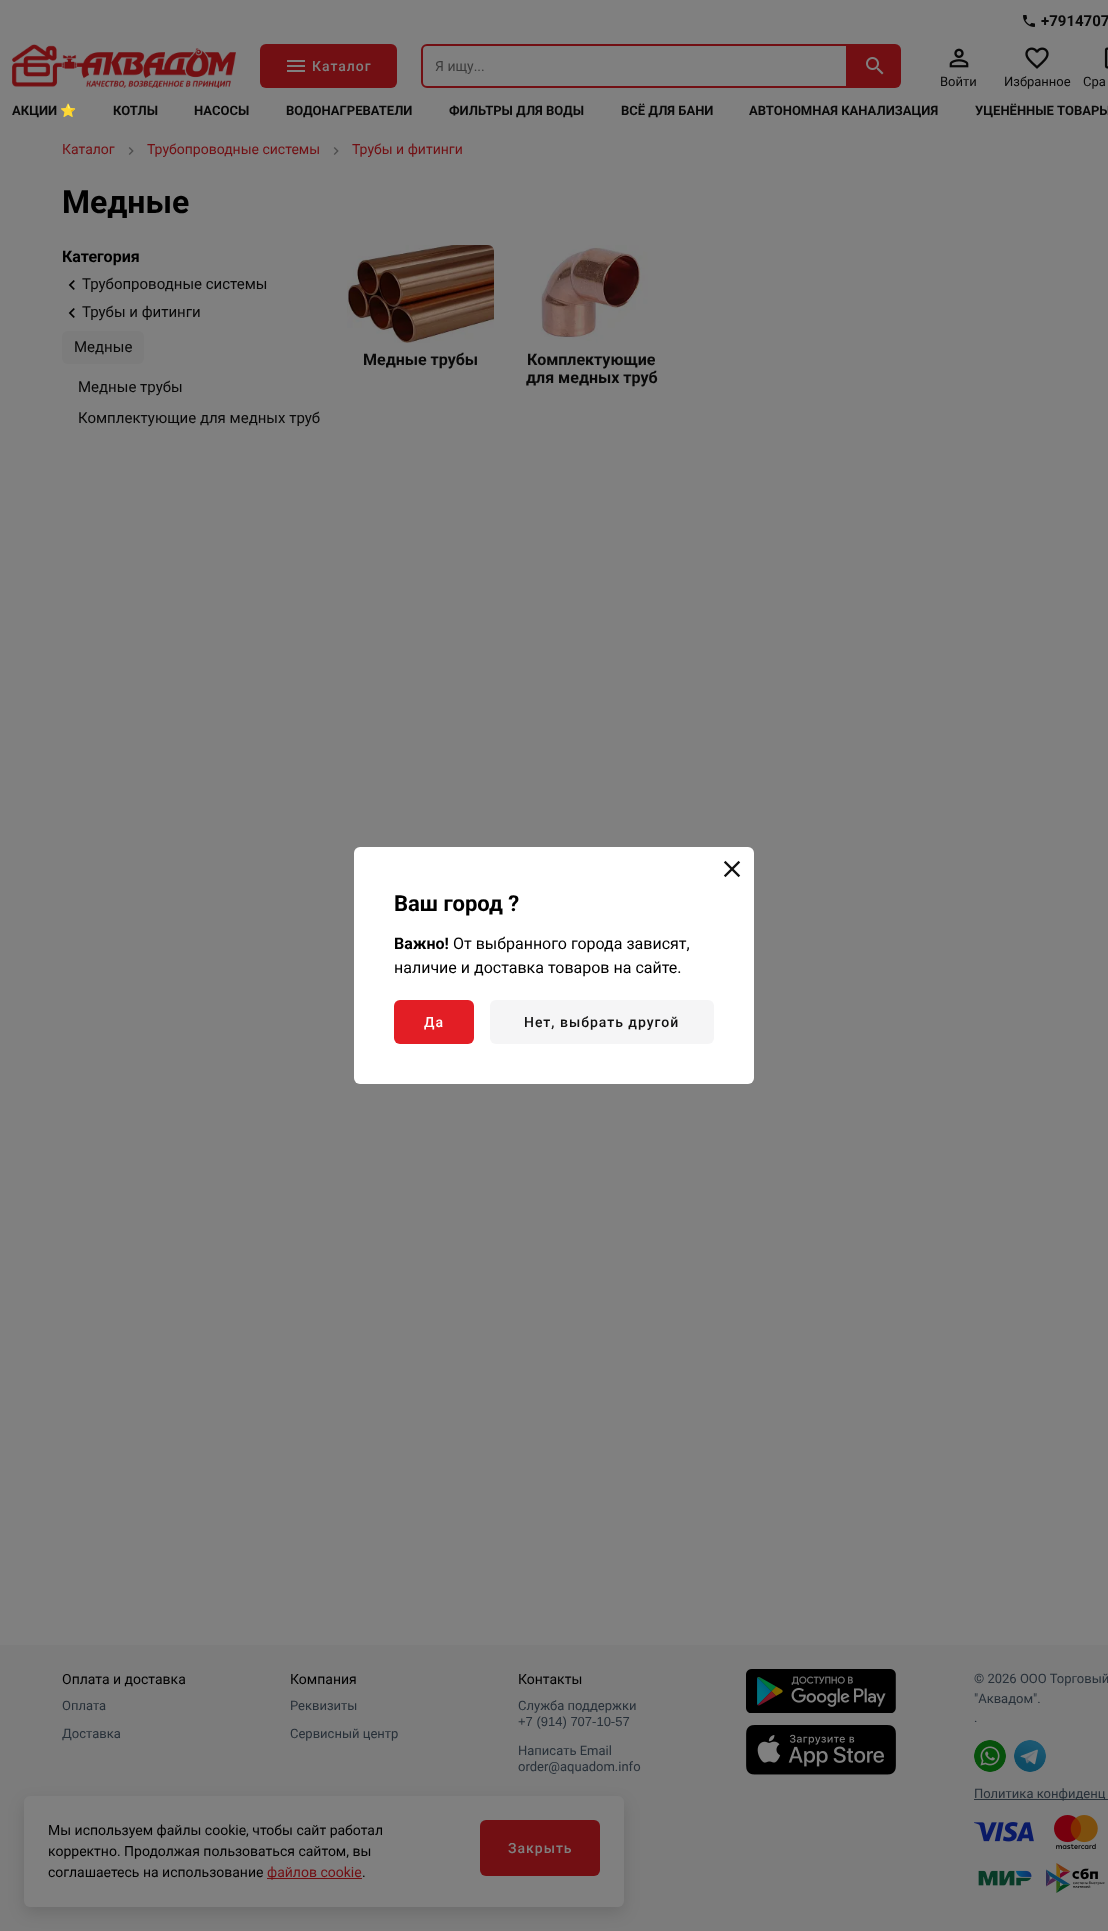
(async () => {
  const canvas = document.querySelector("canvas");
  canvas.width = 1108;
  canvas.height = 1931;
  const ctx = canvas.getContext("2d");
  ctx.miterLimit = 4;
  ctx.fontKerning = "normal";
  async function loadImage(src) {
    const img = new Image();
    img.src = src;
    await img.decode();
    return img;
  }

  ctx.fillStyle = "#808080";
  ctx.fillRect(0, 0, 1108, 1931);
  ctx.drawImage(await loadImage("img/1.png"), 1023, 15, 12, 12);
  ctx.drawImage(await loadImage("img/2.png"), 12, 44, 224, 44);
  ctx.fillStyle = "#720f13";
  ctx.beginPath();
  ctx.roundRect(260, 44, 137, 44, 6);
  ctx.fill();
  ctx.drawImage(await loadImage("img/3.png"), 287, 60, 18, 12);
  ctx.beginPath();
  ctx.roundRect(422, 45, 425, 42, [5, 0, 0, 5]);
  ctx.strokeStyle = "#720f13";
  ctx.lineWidth = 2;
  ctx.stroke();
  ctx.beginPath();
  ctx.roundRect(848, 44, 53, 44, [0, 6, 6, 0]);
  ctx.fill();
  ctx.drawImage(await loadImage("img/4.png"), 866, 57, 18, 18);
  ctx.drawImage(await loadImage("img/5.png"), 949, 48, 20, 20);
  ctx.drawImage(await loadImage("img/6.png"), 1025, 47, 24, 22);
  ctx.drawImage(await loadImage("img/7.png"), 1104, 47, 4, 22);
  ctx.drawImage(await loadImage("img/8.png"), 128, 147, 6, 8);
  ctx.drawImage(await loadImage("img/8.png"), 333, 147, 6, 8);
  ctx.drawImage(await loadImage("img/9.png"), 68, 280, 7, 10);
  ctx.drawImage(await loadImage("img/9.png"), 68, 308, 7, 10);
  ctx.fillStyle = "#7c7c7c";
  ctx.beginPath();
  ctx.roundRect(62, 331, 82, 33, 6);
  ctx.fill();
  ctx.drawImage(await loadImage("img/10.png"), 347, 245, 147, 98);
  ctx.drawImage(await loadImage("img/11.png"), 518, 245, 147, 98);
  ctx.fillStyle = "#ffffff";
  ctx.beginPath();
  ctx.roundRect(354, 847, 400, 237, 6);
  ctx.fill();
  ctx.drawImage(await loadImage("img/12.png"), 723, 860, 18, 18);
  ctx.fillStyle = "#e31e25";
  ctx.beginPath();
  ctx.roundRect(394, 1000, 80, 44, 6);
  ctx.fill();
  ctx.fillStyle = "#f5f5f6";
  ctx.beginPath();
  ctx.roundRect(490, 1000, 224, 44, 6);
  ctx.fill();
  ctx.fillStyle = "#7c7c7c";
  ctx.fillRect(0, 1645, 1108, 286);
  ctx.fillStyle = "rgba(0, 0, 0, 0.12)";
  ctx.filter = "blur(8px)";
  ctx.beginPath();
  ctx.roundRect(24, 1802, 600, 111, 6);
  ctx.fill();
  ctx.filter = "none";
  ctx.fillStyle = "#808080";
  ctx.beginPath();
  ctx.roundRect(24, 1796, 600, 111, 6);
  ctx.fill();
  ctx.fillStyle = "#720f13";
  ctx.fillRect(267, 1878, 95, 1);
  ctx.beginPath();
  ctx.roundRect(480, 1820, 120, 56, 6);
  ctx.fill();
  ctx.drawImage(await loadImage("img/13.png"), 746, 1669, 150, 44);
  ctx.drawImage(await loadImage("img/14.png"), 746, 1725, 150, 50);
  ctx.fillStyle = "#808080";
  ctx.beginPath();
  ctx.arc(990, 1756, 16, 0, Math.PI * 2);
  ctx.fill();
  ctx.drawImage(await loadImage("img/15.png"), 974, 1740, 32, 32);
  ctx.beginPath();
  ctx.arc(1030, 1756, 16, 0, Math.PI * 2);
  ctx.fill();
  ctx.drawImage(await loadImage("img/16.png"), 1014, 1740, 32, 32);
  ctx.fillStyle = "#273039";
  ctx.fillRect(974, 1799, 134, 1);
  ctx.drawImage(await loadImage("img/17.png"), 974, 1822, 60, 20);
  ctx.drawImage(await loadImage("img/18.png"), 1054, 1815, 44, 34);
  ctx.drawImage(await loadImage("img/19.png"), 978, 1870, 54, 16);
  ctx.drawImage(await loadImage("img/20.png"), 1046, 1863, 59, 30);
  ctx.font = "bold 15px Roboto";
  ctx.fillStyle = "#090909";
  ctx.fillText("+7914707", 1041, 26);
  ctx.letterSpacing = "1px";
  ctx.font = "500 14px Roboto";
  ctx.fillStyle = "#808080";
  ctx.fillText("Каталог", 312, 71);
  ctx.letterSpacing = "0px";
  ctx.font = "14px Roboto";
  ctx.fillStyle = "#3b3b3b";
  ctx.fillText("Я ищу...", 435, 71);
  ctx.font = "13px Roboto";
  ctx.fillStyle = "#090909";
  for (const [text, x, y] of [
    ["Войти", 940, 86],
    ["Избранное", 1004, 86],
    ["Сра", 1083, 86],
  ]) {
    ctx.fillText(text, x, y);
  }
  ctx.font = "bold 13px Roboto";
  ctx.fillText("АКЦИИ", 12, 115);
  ctx.font = "bold 13px Noto Color Emoji";
  ctx.fillText("⭐", 60, 115);
  ctx.font = "bold 13px Roboto";
  for (const [text, x, y] of [
    ["КОТЛЫ", 113, 115],
    ["НАСОСЫ", 194, 115],
    ["ВОДОНАГРЕВАТЕЛИ", 286, 115],
    ["ФИЛЬТРЫ ДЛЯ ВОДЫ", 449, 115],
    ["ВСЁ ДЛЯ БАНИ", 621, 115],
    ["АВТОНОМНАЯ КАНАЛИЗАЦИЯ", 749, 115],
    ["УЦЕНЁННЫЕ ТОВАРЫ", 975, 115],
  ]) {
    ctx.fillText(text, x, y);
  }
  ctx.font = "14px Roboto";
  ctx.fillStyle = "#720f13";
  for (const [text, x, y] of [
    ["Каталог", 62, 154],
    ["Трубопроводные системы", 147, 154],
    ["Трубы и фитинги", 352, 154],
  ]) {
    ctx.fillText(text, x, y);
  }
  ctx.font = "bold 32px Roboto";
  ctx.fillStyle = "#000000";
  ctx.fillText("Медные", 62, 213);
  ctx.font = "bold 16px Roboto";
  ctx.fillText("Категория", 62, 262);
  ctx.font = "15px Roboto";
  ctx.fillStyle = "#090909";
  for (const [text, x, y] of [
    ["Трубопроводные системы", 82, 289],
    ["Трубы и фитинги", 82, 317],
    ["Медные", 74, 352],
    ["Медные трубы", 78, 392],
    ["Комплектующие для медных труб", 78, 423],
  ]) {
    ctx.fillText(text, x, y);
  }
  ctx.font = "bold 16px Roboto";
  for (const [text, x, y] of [
    ["Медные трубы", 363, 365],
    ["Комплектующие", 527, 365],
    ["для медных труб", 526, 383],
  ]) {
    ctx.fillText(text, x, y);
  }
  ctx.font = "bold 22px Roboto";
  ctx.fillStyle = "#000000";
  ctx.fillText("Ваш город ?", 394, 911);
  ctx.font = "bold 16px Roboto";
  ctx.fillText("Важно!", 394, 949);
  ctx.font = "16px Roboto";
  ctx.fillText("От выбранного города зависят,", 453, 949);
  ctx.fillText("наличие и доставка товаров на сайте.", 394, 973);
  ctx.letterSpacing = "1px";
  ctx.font = "500 14px Roboto";
  ctx.fillStyle = "#ffffff";
  ctx.fillText("Да", 424, 1027);
  ctx.fillStyle = "#111111";
  ctx.fillText("Нет, выбрать другой", 524, 1027);
  ctx.letterSpacing = "0px";
  ctx.font = "14px Roboto";
  ctx.fillStyle = "#000000";
  for (const [text, x, y] of [
    ["Мы используем файлы cookie, чтобы сайт работал", 48, 1835],
    ["корректно. Продолжая пользоваться сайтом, вы", 48, 1856],
    ["соглашаетесь на использование", 48, 1877],
  ]) {
    ctx.fillText(text, x, y);
  }
  ctx.fillStyle = "#720f13";
  ctx.fillText("файлов cookie", 267, 1877);
  ctx.fillStyle = "#000000";
  ctx.fillText(".", 362, 1877);
  ctx.letterSpacing = "1px";
  ctx.font = "500 14px Roboto";
  ctx.fillStyle = "#808080";
  ctx.fillText("Закрыть", 508, 1853);
  ctx.letterSpacing = "0px";
  ctx.font = "14px Roboto";
  ctx.fillStyle = "#000000";
  ctx.fillText("Оплата и доставка", 62, 1684);
  ctx.font = "13px Roboto";
  ctx.fillStyle = "#273039";
  ctx.fillText("Оплата", 62, 1710);
  ctx.fillText("Доставка", 62, 1738);
  ctx.font = "14px Roboto";
  ctx.fillStyle = "#000000";
  ctx.fillText("Компания", 290, 1684);
  ctx.font = "13px Roboto";
  ctx.fillStyle = "#273039";
  ctx.fillText("Реквизиты", 290, 1710);
  ctx.fillText("Сервисный центр", 290, 1738);
  ctx.font = "14px Roboto";
  ctx.fillStyle = "#000000";
  ctx.fillText("Контакты", 518, 1684);
  ctx.font = "13px Roboto";
  ctx.fillStyle = "#273039";
  ctx.fillText("Служба поддержки", 518, 1710);
  ctx.font = "13px Liberation Sans";
  ctx.fillText("+7 (914) 707‑10‑57", 518, 1726);
  ctx.font = "13px Roboto";
  for (const [text, x, y] of [
    ["Написать Email", 518, 1755],
    ["order@aquadom.info", 518, 1771],
    ["© 2026 ООО Торговый", 974, 1683],
    ["\"Аквадом\".", 974, 1703],
    [".", 974, 1722],
    ["Политика конфиденц", 974, 1798],
  ]) {
    ctx.fillText(text, x, y);
  }
})();
